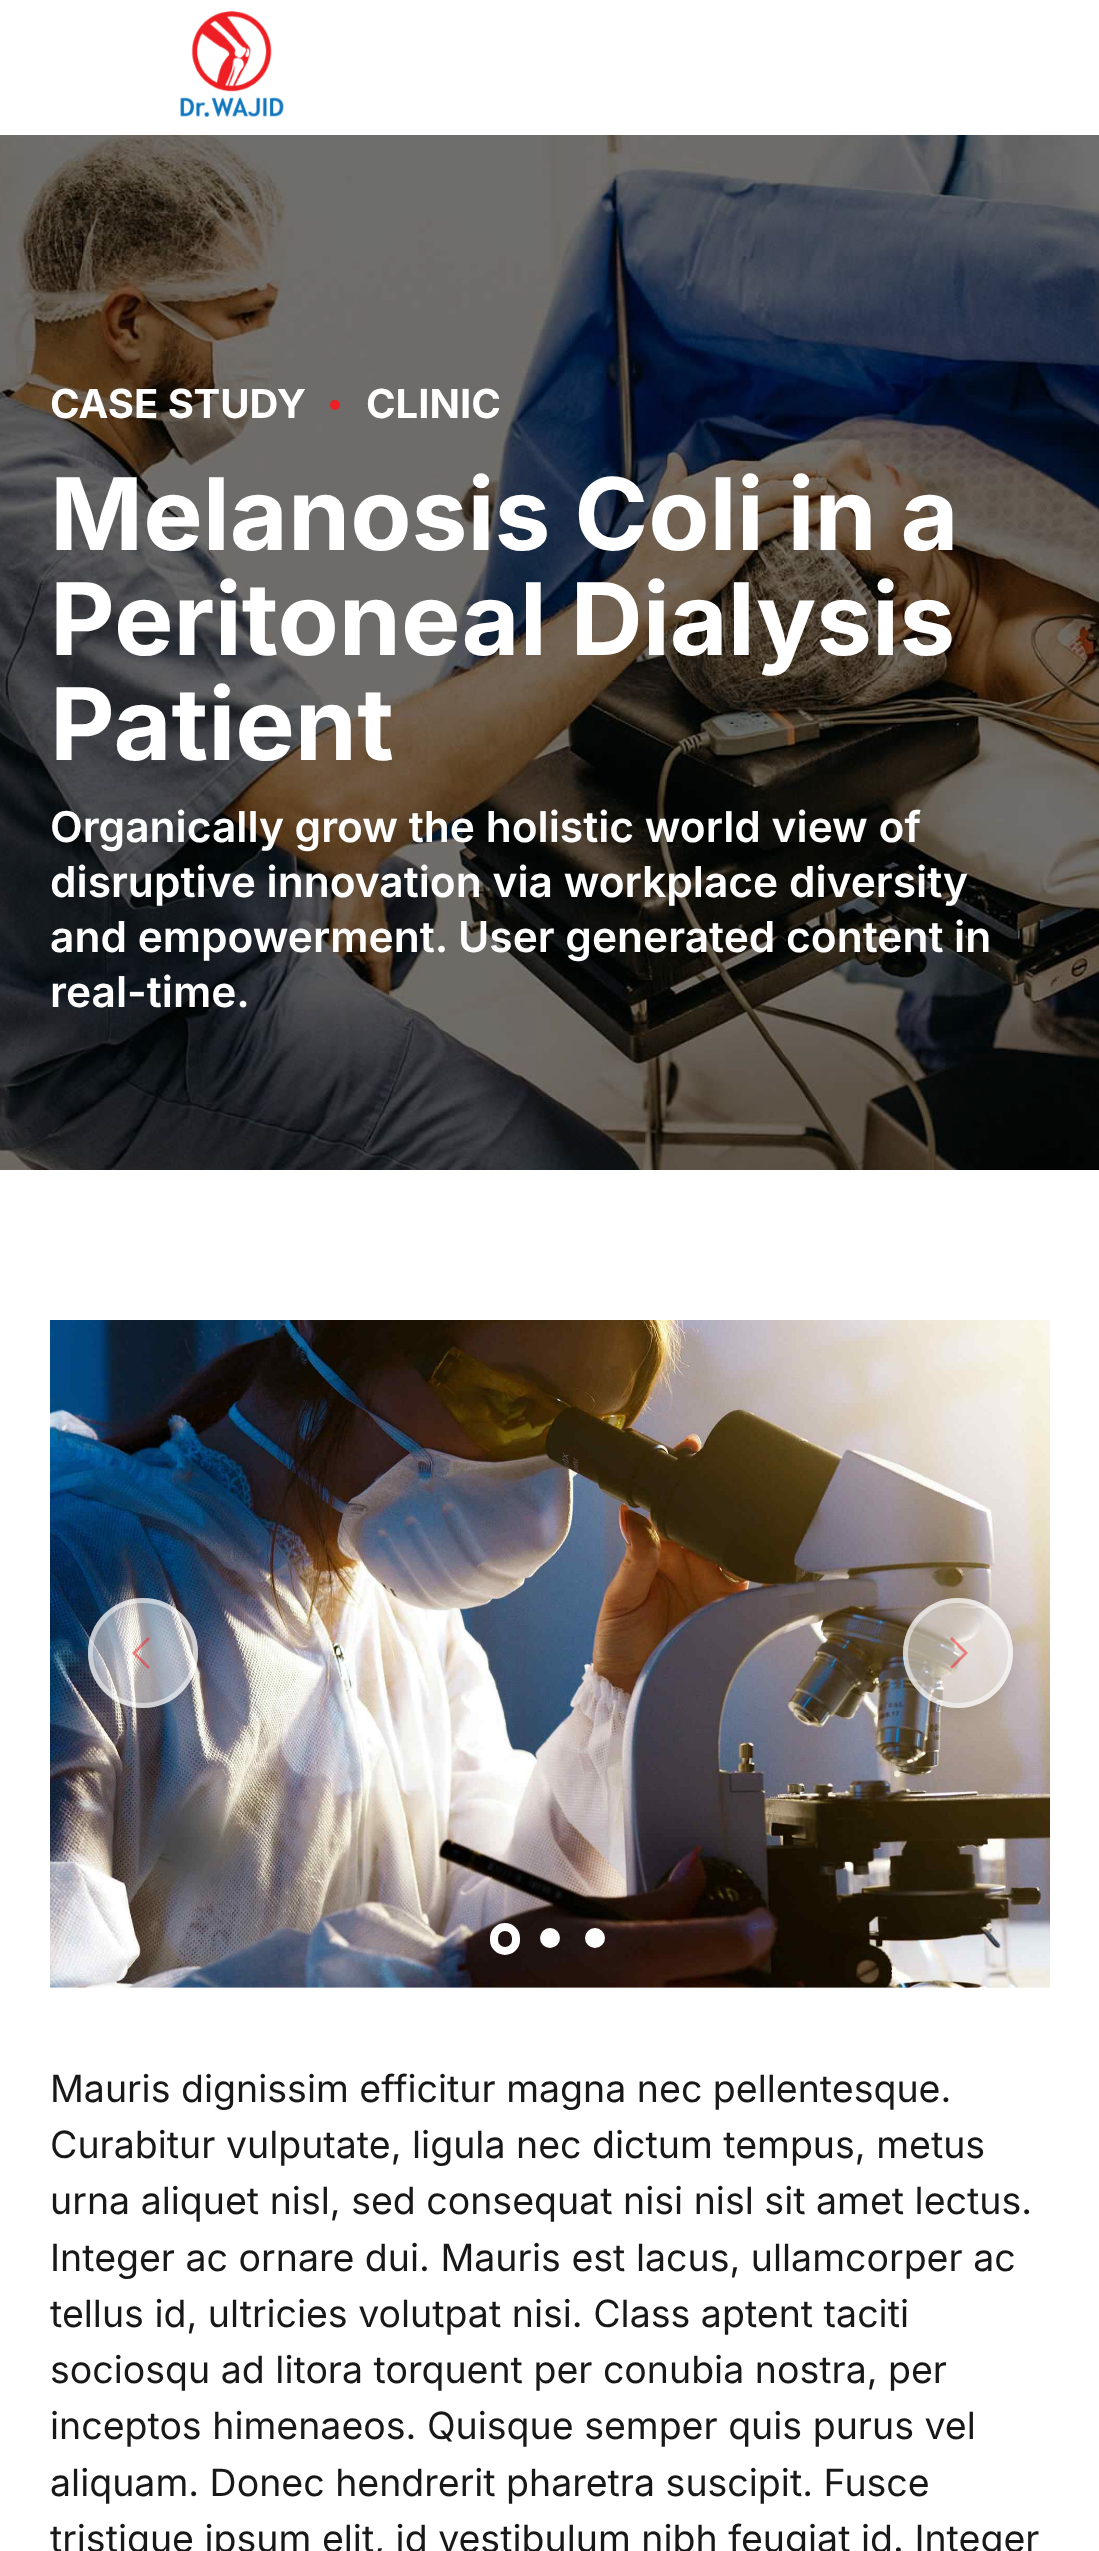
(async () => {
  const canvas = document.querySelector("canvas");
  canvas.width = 1099;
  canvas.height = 2551;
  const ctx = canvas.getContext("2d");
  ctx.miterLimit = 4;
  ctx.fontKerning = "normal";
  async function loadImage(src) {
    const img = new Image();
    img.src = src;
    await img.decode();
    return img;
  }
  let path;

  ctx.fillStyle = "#ffffff";
  ctx.fillRect(0, 0, 1099, 2551);
  ctx.drawImage(await loadImage("img/1.png"), 180, 11, 104, 106);
  ctx.drawImage(await loadImage("img/2.png"), 0, 135, 1099, 1035);
  ctx.fillStyle = "#ed1f24";
  ctx.beginPath();
  ctx.arc(335, 405, 5, 0, Math.PI * 2);
  ctx.fill();
  ctx.drawImage(await loadImage("img/3.png"), 50, 1320, 1000, 668);
  ctx.save();
  path = new Path2D("M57 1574H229V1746H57ZM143 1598C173.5 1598 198 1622.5 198 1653C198 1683.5 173.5 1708 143 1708C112.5 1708 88 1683.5 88 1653C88 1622.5 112.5 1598 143 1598Z");
  ctx.clip(path, "evenodd");
  ctx.fillStyle = "rgba(0, 0, 0, 0.1)";
  ctx.filter = "blur(10px)";
  ctx.beginPath();
  ctx.roundRect(88, 1605, 110, 110, 55);
  ctx.fill();
  ctx.filter = "none";
  ctx.restore();
  ctx.fillStyle = "rgba(255, 255, 255, 0.5)";
  ctx.beginPath();
  ctx.arc(143, 1653, 55, 0, Math.PI * 2);
  ctx.fill();
  ctx.beginPath();
  ctx.arc(143, 1653, 52.5, 0, Math.PI * 2);
  ctx.strokeStyle = "rgba(255, 255, 255, 0.5)";
  ctx.lineWidth = 5;
  ctx.stroke();
  ctx.fillStyle = "rgba(237, 31, 36, 0.5)";
  path = new Path2D("M134 1651L132 1653L148 1669L150 1667L136 1653L150 1639L148 1637Z");
  ctx.fill(path);
  ctx.save();
  path = new Path2D("M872 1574H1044V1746H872ZM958 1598C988.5 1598 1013 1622.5 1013 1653C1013 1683.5 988.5 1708 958 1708C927.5 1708 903 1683.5 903 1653C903 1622.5 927.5 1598 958 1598Z");
  ctx.clip(path, "evenodd");
  ctx.fillStyle = "rgba(0, 0, 0, 0.1)";
  ctx.filter = "blur(10px)";
  ctx.beginPath();
  ctx.roundRect(903, 1605, 110, 110, 55);
  ctx.fill();
  ctx.filter = "none";
  ctx.restore();
  ctx.fillStyle = "rgba(255, 255, 255, 0.5)";
  ctx.beginPath();
  ctx.arc(958, 1653, 55, 0, Math.PI * 2);
  ctx.fill();
  ctx.beginPath();
  ctx.arc(958, 1653, 52.5, 0, Math.PI * 2);
  ctx.stroke();
  ctx.fillStyle = "rgba(237, 31, 36, 0.5)";
  path = new Path2D("M966 1655L968 1653L952 1637L950 1639L964 1653L950 1667L952 1669Z");
  ctx.fill(path);
  ctx.beginPath();
  ctx.roundRect(494, 1927, 22, 24, 11);
  ctx.strokeStyle = "#ffffff";
  ctx.lineWidth = 8;
  ctx.stroke();
  ctx.fillStyle = "#ffffff";
  ctx.beginPath();
  ctx.arc(550, 1938, 7.5, 0, Math.PI * 2);
  ctx.fill();
  ctx.lineWidth = 5;
  ctx.stroke();
  ctx.beginPath();
  ctx.arc(595, 1938, 7.5, 0, Math.PI * 2);
  ctx.fill();
  ctx.stroke();
  ctx.font = "bold 40px Inter";
  ctx.fillText("CASE STUDY", 50, 418);
  ctx.fillText("CLINIC", 366, 418);
  ctx.font = "bold 100px Inter";
  for (const [text, x, y] of [
    ["Melanosis Coli in a", 50, 550],
    ["Peritoneal Dialysis", 50, 655],
    ["Patient", 50, 760],
  ]) {
    ctx.fillText(text, x, y);
  }
  ctx.font = "600 42.5px Inter";
  for (const [text, x, y] of [
    ["Organically grow the holistic world view of", 50, 842],
    ["disruptive innovation via workplace diversity", 50, 897],
    ["and empowerment. User generated content in", 50, 952],
    ["real-time.", 50, 1007],
  ]) {
    ctx.fillText(text, x, y);
  }
  ctx.font = "37.5px Inter";
  ctx.fillStyle = "#181818";
  for (const [text, x, y] of [
    ["Mauris dignissim efficitur magna nec pellentesque.", 50, 2102],
    ["Curabitur vulputate, ligula nec dictum tempus, metus", 50, 2158],
    ["urna aliquet nisl, sed consequat nisi nisl sit amet lectus.", 50, 2214],
    ["Integer ac ornare dui. Mauris est lacus, ullamcorper ac", 50, 2271],
    ["tellus id, ultricies volutpat nisi. Class aptent taciti", 50, 2327],
    ["sociosqu ad litora torquent per conubia nostra, per", 50, 2383],
    ["inceptos himenaeos. Quisque semper quis purus vel", 50, 2439],
    ["aliquam. Donec hendrerit pharetra suscipit. Fusce", 50, 2496],
    ["tristique ipsum elit, id vestibulum nibh feugiat id. Integer", 50, 2552],
  ]) {
    ctx.fillText(text, x, y);
  }
})();
